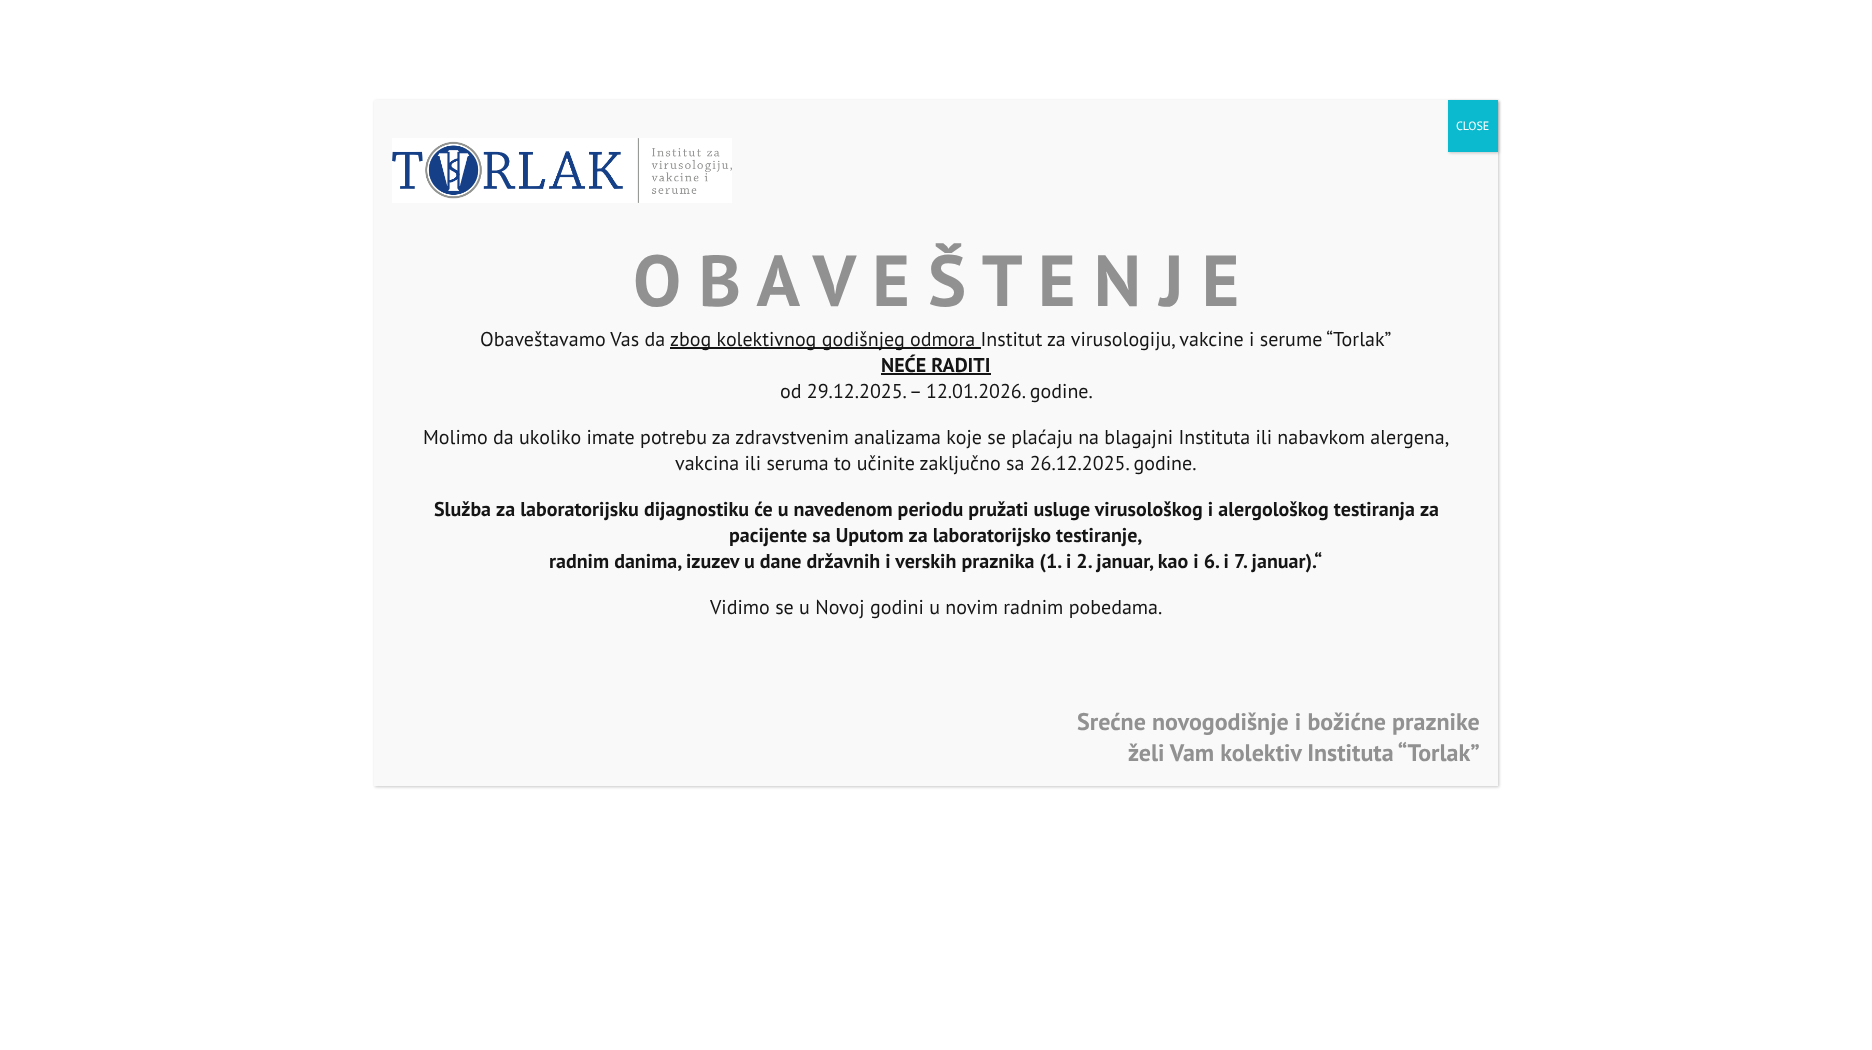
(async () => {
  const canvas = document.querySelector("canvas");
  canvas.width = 1872;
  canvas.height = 1050;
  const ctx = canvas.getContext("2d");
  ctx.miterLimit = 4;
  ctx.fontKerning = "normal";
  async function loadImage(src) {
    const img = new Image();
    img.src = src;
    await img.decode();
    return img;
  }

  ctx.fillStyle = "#ffffff";
  ctx.fillRect(0, 0, 1872, 1050);
  ctx.fillStyle = "rgba(14, 14, 14, 0.23)";
  ctx.filter = "blur(1.5px)";
  ctx.beginPath();
  ctx.rect(375, 101, 1124, 686);
  ctx.fill();
  ctx.filter = "none";
  ctx.fillStyle = "#f9f9f9";
  ctx.fillRect(374, 100, 1124, 686);
  ctx.fillStyle = "rgba(14, 14, 14, 0.23)";
  ctx.filter = "blur(1.5px)";
  ctx.beginPath();
  ctx.rect(1449, 101, 50, 52);
  ctx.fill();
  ctx.filter = "none";
  ctx.fillStyle = "#0cbacf";
  ctx.fillRect(1448, 100, 50, 52);
  ctx.drawImage(await loadImage("img/1.png"), 392, 138, 340, 65);
  ctx.fillStyle = "#151515";
  ctx.fillRect(670, 347, 311, 2);
  ctx.fillRect(881, 373, 110, 2);
  ctx.font = "12px PT Sans";
  ctx.fillStyle = "#ffffff";
  ctx.fillText("CLOSE", 1456, 130);
  ctx.font = "bold 72px PT Sans";
  ctx.fillStyle = "#919191";
  ctx.fillText("O B A V E Š T E N J E", 633, 306);
  ctx.font = "20px PT Sans";
  ctx.fillStyle = "#151515";
  ctx.fillText("Obaveštavamo Vas da", 480, 346);
  ctx.fillText("zbog kolektivnog godišnjeg odmora Institut za virusologiju, vakcine i serume “Torlak”", 670, 346);
  ctx.font = "bold 20px PT Sans";
  ctx.fillText("NEĆE RADITI", 881, 372);
  ctx.font = "20px PT Sans";
  for (const [text, x, y] of [
    ["od 29.12.2025. – 12.01.2026. godine.", 780, 398],
    ["Molimo da ukoliko imate potrebu za zdravstvenim analizama koje se plaćaju na blagajni Instituta ili nabavkom alergena,", 423, 444],
    ["vakcina ili seruma to učinite zaključno sa 26.12.2025. godine.", 675, 470],
  ]) {
    ctx.fillText(text, x, y);
  }
  ctx.font = "bold 20px PT Sans";
  for (const [text, x, y] of [
    ["Služba za laboratorijsku dijagnostiku će u navedenom periodu pružati usluge virusološkog i alergološkog testiranja za", 434, 516],
    ["pacijente sa Uputom za laboratorijsko testiranje,", 729, 542],
    ["radnim danima, izuzev u dane državnih i verskih praznika (1. i 2. januar, kao i 6. i 7. januar).“", 549, 568],
  ]) {
    ctx.fillText(text, x, y);
  }
  ctx.font = "20px PT Sans";
  ctx.fillText("Vidimo se u Novoj godini u novim radnim pobedama.", 710, 614);
  ctx.font = "bold 24px PT Sans";
  ctx.fillStyle = "#919191";
  ctx.fillText("Srećne novogodišnje i božićne praznike", 1077, 730);
  ctx.fillText("želi Vam kolektiv Instituta “Torlak”", 1128, 761);
})();
